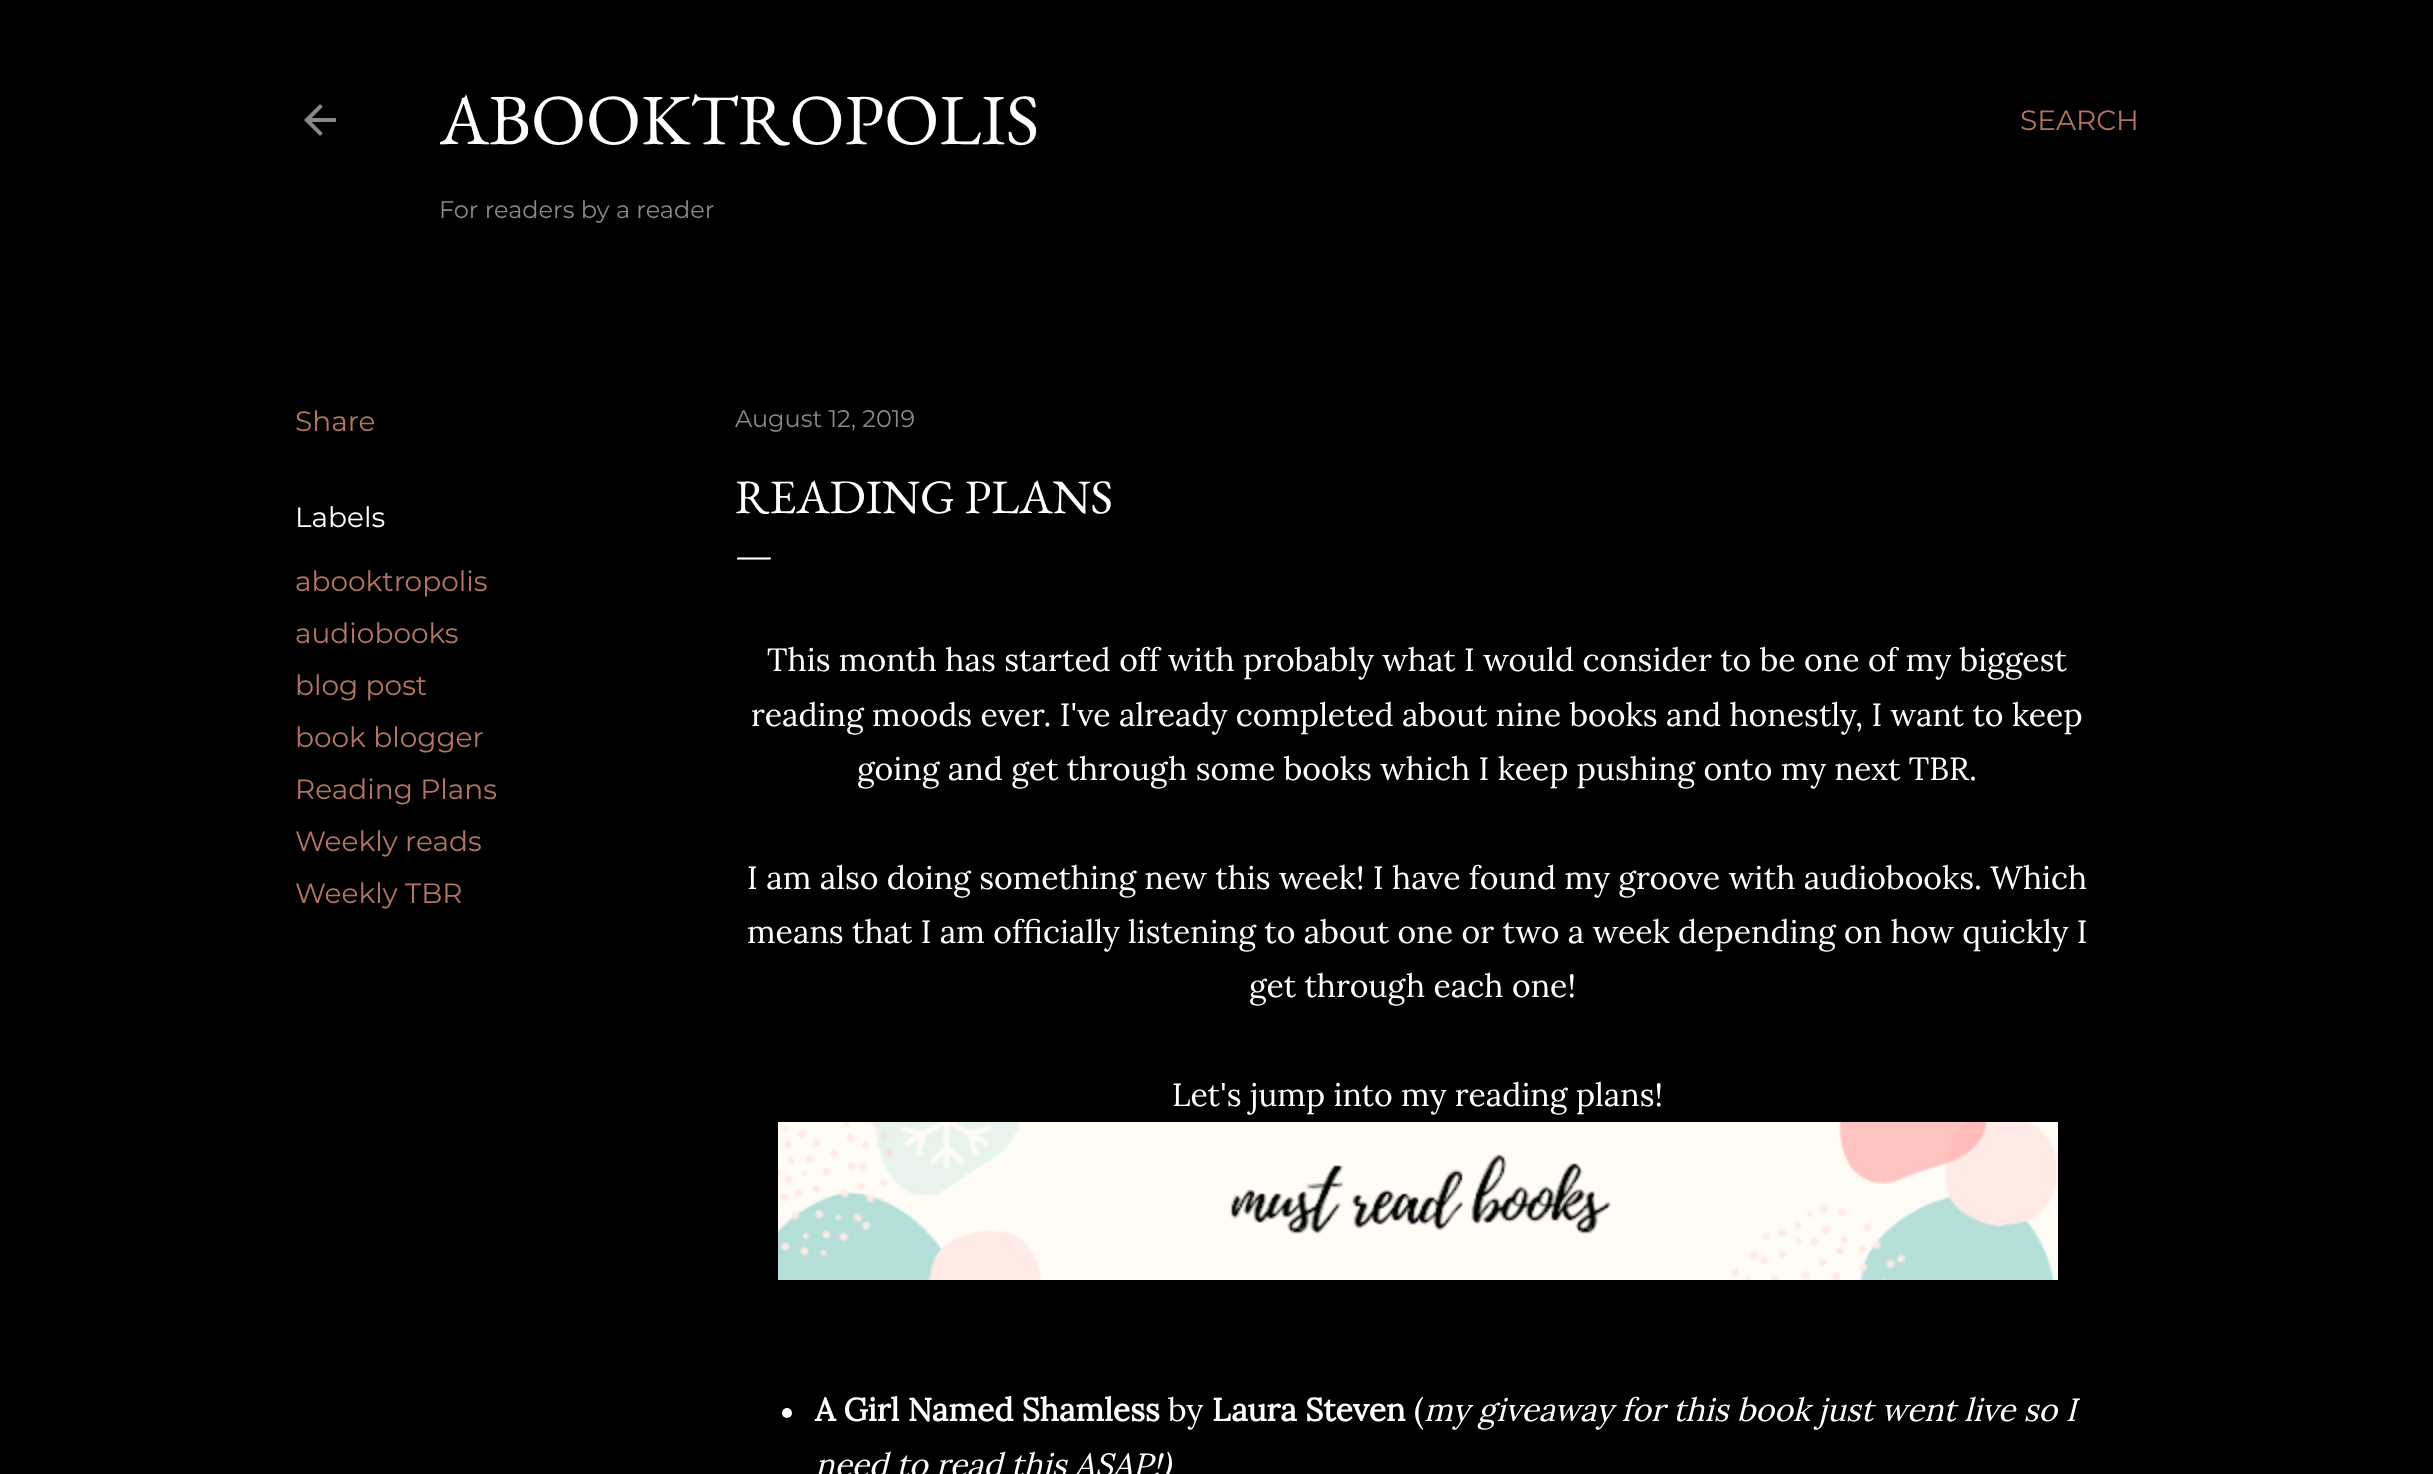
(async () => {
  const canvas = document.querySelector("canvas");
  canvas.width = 2433;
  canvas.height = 1474;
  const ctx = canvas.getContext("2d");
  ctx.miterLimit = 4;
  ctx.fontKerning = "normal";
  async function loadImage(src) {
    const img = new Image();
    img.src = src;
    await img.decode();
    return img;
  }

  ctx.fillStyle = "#000000";
  ctx.fillRect(0, 0, 2433, 1474);
  ctx.drawImage(await loadImage("img/1.png"), 304, 104, 32, 32);
  ctx.drawImage(await loadImage("img/2.png"), 778, 1122, 1280, 158);
  ctx.fillStyle = "#ffffff";
  ctx.beginPath();
  ctx.arc(787, 1413, 5, 0, Math.PI * 2);
  ctx.fill();
  ctx.save();
  ctx.beginPath();
  ctx.rect(440, 72, 1484, 182);
  ctx.clip();
  ctx.font = "72px EB Garamond";
  ctx.fillText("ABOOKTROPOLIS", 439, 144);
  ctx.restore();
  ctx.font = "24px Montserrat";
  ctx.fillStyle = "#888888";
  ctx.fillText("For readers by a reader", 439, 218);
  ctx.font = "28px Montserrat";
  ctx.fillStyle = "#b47462";
  ctx.fillText("SEARCH", 2020, 130);
  ctx.fillText("Share", 295, 431);
  ctx.fillStyle = "#ffffff";
  ctx.fillText("Labels", 295, 527);
  ctx.fillStyle = "#b47462";
  for (const [text, x, y] of [
    ["abooktropolis", 295, 591],
    ["audiobooks", 295, 643],
    ["blog post", 295, 695],
    ["book blogger", 295, 747],
    ["Reading Plans", 295, 799],
    ["Weekly reads", 295, 851],
    ["Weekly TBR", 295, 903],
  ]) {
    ctx.fillText(text, x, y);
  }
  ctx.font = "24px Montserrat";
  ctx.fillStyle = "#888888";
  ctx.fillText("August 12, 2019", 735, 427);
  ctx.font = "48px EB Garamond";
  ctx.fillStyle = "#ffffff";
  ctx.fillText("READING PLANS", 735, 513);
  ctx.font = "40px EB Garamond";
  ctx.fillText("—", 735, 567);
  ctx.font = "32px Lora";
  for (const [text, x, y] of [
    ["This month has started off with probably what I would consider to be one of my biggest", 767, 671],
    ["reading moods ever. I've already completed about nine books and honestly, I want to keep", 751, 726],
    ["going and get through some books which I keep pushing onto my next TBR.", 857, 780],
    ["I am also doing something new this week! I have found my groove with audiobooks. Which", 747, 889],
    ["means that I am officially listening to about one or two a week depending on how quickly I", 747, 943],
    ["get through each one!", 1249, 997],
    ["Let's jump into my reading plans!", 1172, 1106],
  ]) {
    ctx.fillText(text, x, y);
  }
  ctx.font = "bold 32px Lora";
  ctx.fillText("A Girl Named Shamless", 815, 1421);
  ctx.font = "32px Lora";
  ctx.fillText("by", 1168, 1421);
  ctx.font = "bold 32px Lora";
  ctx.fillText("Laura Steven", 1212, 1421);
  ctx.font = "32px Lora";
  ctx.fillText("(", 1414, 1421);
  ctx.font = "italic 32px Lora";
  ctx.fillText("my giveaway for this book just went live so I", 1424, 1421);
  ctx.fillText("need to read this ASAP!)", 815, 1476);
})();
